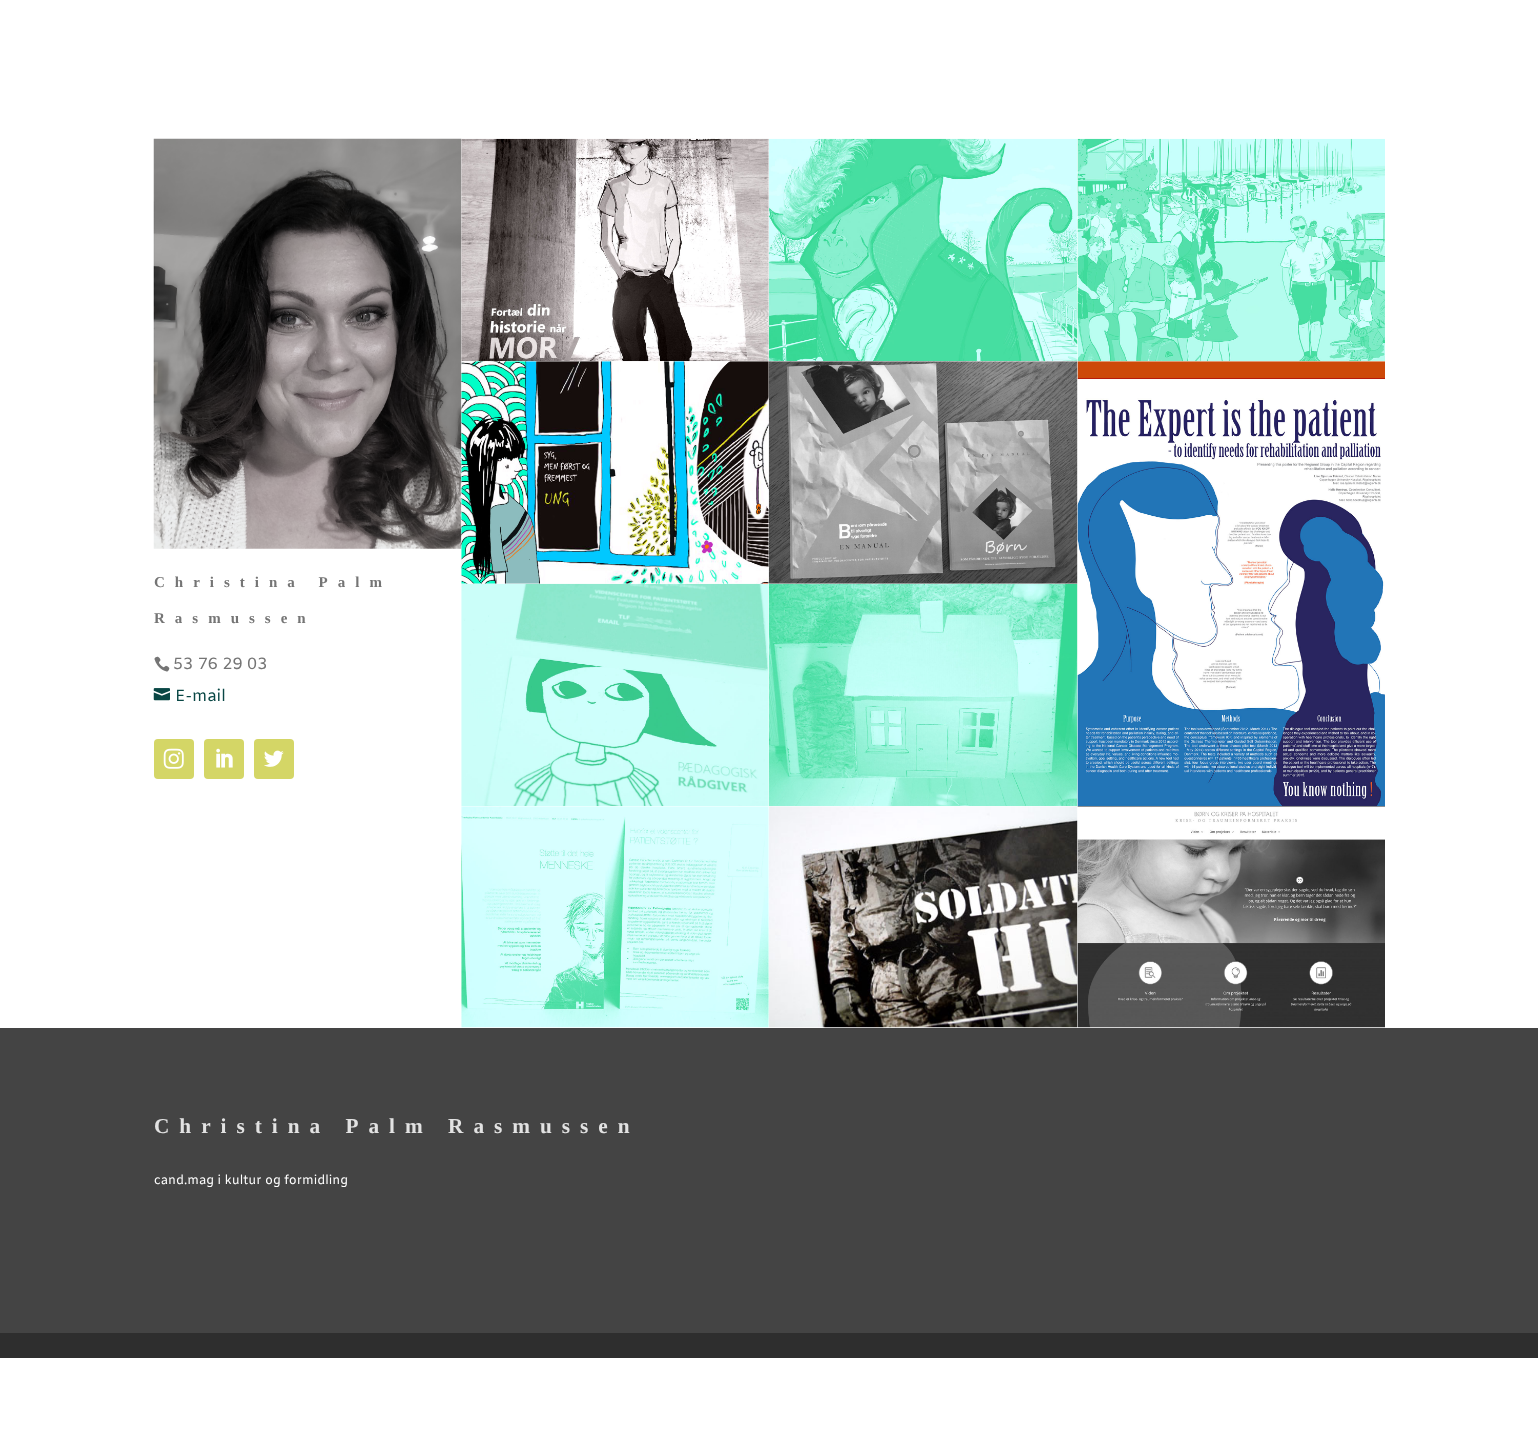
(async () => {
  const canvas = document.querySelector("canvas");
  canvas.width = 1538;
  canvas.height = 1436;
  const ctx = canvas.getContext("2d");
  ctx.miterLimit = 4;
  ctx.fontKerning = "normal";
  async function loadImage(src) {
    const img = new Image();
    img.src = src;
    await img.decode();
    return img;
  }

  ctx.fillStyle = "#ffffff";
  ctx.fillRect(0, 0, 1538, 1436);
  ctx.drawImage(await loadImage("img/1.png"), 153, 138, 309, 411);
  ctx.drawImage(await loadImage("img/2.png"), 154, 656, 16, 16);
  ctx.drawImage(await loadImage("img/3.png"), 153, 688, 17, 13);
  ctx.fillStyle = "#d4d666";
  ctx.beginPath();
  ctx.roundRect(154, 739, 40, 40, 4);
  ctx.fill();
  ctx.drawImage(await loadImage("img/4.png"), 163, 748, 21, 21);
  ctx.beginPath();
  ctx.roundRect(204, 739, 40, 40, 4);
  ctx.fill();
  ctx.drawImage(await loadImage("img/5.png"), 216, 748, 17, 20);
  ctx.beginPath();
  ctx.roundRect(254, 739, 40, 40, 4);
  ctx.fill();
  ctx.drawImage(await loadImage("img/6.png"), 264, 750, 20, 17);
  ctx.drawImage(await loadImage("img/7.png"), 461, 138, 308, 224);
  ctx.drawImage(await loadImage("img/8.png"), 461, 361, 308, 223);
  ctx.drawImage(await loadImage("img/9.png"), 461, 583, 308, 224);
  ctx.drawImage(await loadImage("img/10.png"), 461, 806, 308, 222);
  ctx.drawImage(await loadImage("img/11.png"), 768, 138, 310, 224);
  ctx.drawImage(await loadImage("img/12.png"), 768, 361, 310, 223);
  ctx.drawImage(await loadImage("img/13.png"), 768, 583, 310, 224);
  ctx.drawImage(await loadImage("img/14.png"), 769, 806, 309, 222);
  ctx.drawImage(await loadImage("img/15.png"), 1077, 138, 308, 224);
  ctx.drawImage(await loadImage("img/16.png"), 1077, 361, 308, 446);
  ctx.drawImage(await loadImage("img/17.png"), 1077, 806, 308, 222);
  ctx.fillStyle = "#444444";
  ctx.fillRect(0, 1028, 1538, 305);
  ctx.fillStyle = "#2e2e2e";
  ctx.fillRect(0, 1333, 1538, 25);
  ctx.letterSpacing = "10px";
  ctx.font = "bold 15px Liberation Serif";
  ctx.fillStyle = "#757575";
  ctx.fillText("Christina Palm", 154, 587);
  ctx.fillText("Rasmussen", 154, 623);
  ctx.letterSpacing = "0px";
  ctx.font = "16.25px Amiko";
  ctx.fillText("53 76 29 03", 173, 669);
  ctx.fillStyle = "#094745";
  ctx.fillText("E-mail", 175, 701);
  ctx.letterSpacing = "10px";
  ctx.font = "bold 21.25px Liberation Serif";
  ctx.fillStyle = "#e2e2e2";
  ctx.fillText("Christina Palm Rasmussen", 154, 1133);
  ctx.letterSpacing = "0px";
  ctx.font = "12.5px Amiko";
  ctx.fillStyle = "#ffffff";
  ctx.fillText("cand.mag i kultur og formidling", 154, 1184);
})();
